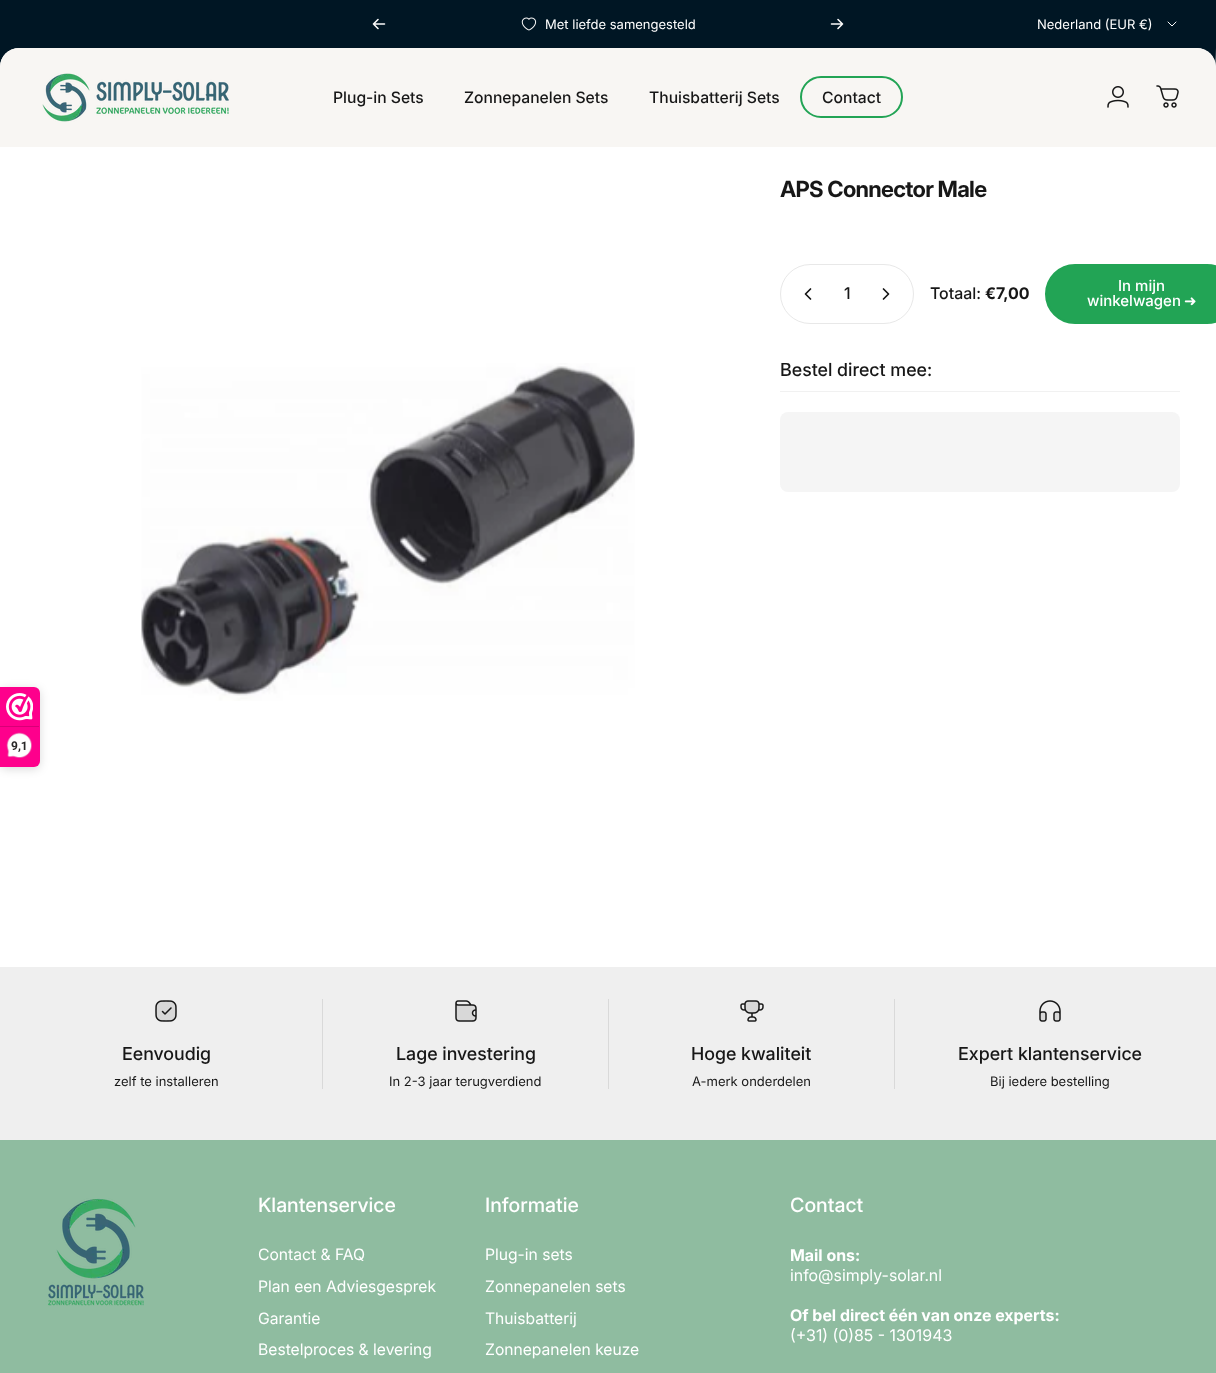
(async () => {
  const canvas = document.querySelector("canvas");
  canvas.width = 1216;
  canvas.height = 1373;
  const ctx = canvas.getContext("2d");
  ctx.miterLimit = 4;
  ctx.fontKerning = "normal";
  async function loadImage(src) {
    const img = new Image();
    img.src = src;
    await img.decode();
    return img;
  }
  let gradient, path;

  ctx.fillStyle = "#ffffff";
  ctx.fillRect(0, 0, 1216, 1373);
  ctx.fillStyle = "#001624";
  ctx.fillRect(0, 0, 1216, 48);
  path = new Path2D("M378 19.5L373.5 24M373.5 24L378 28.5M373.5 24H384.5");
  ctx.strokeStyle = "#fafafa";
  ctx.lineWidth = 1.6;
  ctx.lineCap = "round";
  ctx.lineJoin = "round";
  ctx.stroke(path);
  ctx.drawImage(await loadImage("img/1.png"), 521, 17, 16, 14);
  path = new Path2D("M831.5 24H842.5M842.5 24L838 19.5M842.5 24L838 28.5");
  ctx.stroke(path);
  path = new Path2D("M1168 22L1172 26L1176 22");
  ctx.lineWidth = 1;
  ctx.stroke(path);
  path = new Path2D("M19 48H0V67C0 56.5 8.5 48 19 48Z");
  ctx.fill(path, "evenodd");
  path = new Path2D("M1196.5 48H1216L1215.5 67C1215.5 56.5 1207 48 1196.5 48Z");
  ctx.fill(path, "evenodd");
  ctx.fillStyle = "#f8f6f3";
  ctx.beginPath();
  ctx.roundRect(0, 48, 1216, 99, [19, 19, 0, 0]);
  ctx.fill();
  ctx.drawImage(await loadImage("img/2.png"), 42, 73, 187, 49);
  ctx.beginPath();
  ctx.roundRect(801, 77, 101, 40, 20);
  ctx.strokeStyle = "#22a455";
  ctx.lineWidth = 2;
  ctx.lineJoin = "miter";
  ctx.stroke();
  ctx.drawImage(await loadImage("img/3.png"), 1107, 86, 22, 22);
  ctx.drawImage(await loadImage("img/4.png"), 1156, 85, 23, 23);
  ctx.fillStyle = "rgba(0, 0, 0, 0.15)";
  ctx.filter = "blur(5px)";
  ctx.beginPath();
  ctx.roundRect(0, 689, 40, 80, 6);
  ctx.fill();
  ctx.filter = "none";
  ctx.fillStyle = "#fe008c";
  ctx.beginPath();
  ctx.roundRect(0, 687, 40, 80, [0, 6, 6, 0]);
  ctx.fill();
  ctx.drawImage(await loadImage("img/5.png"), 6, 693, 27, 28);
  ctx.fillStyle = "#d80077";
  ctx.fillRect(0, 726, 39, 1);
  ctx.drawImage(await loadImage("img/6.png"), 6, 732, 26, 26);
  ctx.beginPath();
  ctx.roundRect(780.5, 264.5, 133, 59, 29.5);
  ctx.strokeStyle = "#e8e8e8";
  ctx.lineWidth = 1;
  ctx.stroke();
  path = new Path2D("M810.5 289L805.5 294L810.5 299");
  ctx.strokeStyle = "#171717";
  ctx.lineWidth = 1.7;
  ctx.lineJoin = "round";
  ctx.stroke(path);
  path = new Path2D("M883.5 289L888.5 294L883.5 299");
  ctx.stroke(path);
  ctx.fillStyle = "#22a455";
  ctx.beginPath();
  ctx.roundRect(1046, 265, 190, 58, 29);
  ctx.fill();
  ctx.strokeStyle = "#22a455";
  ctx.lineWidth = 2;
  ctx.lineJoin = "miter";
  ctx.stroke();
  ctx.fillStyle = "#f1f1f1";
  ctx.fillRect(780, 391, 400, 1);
  gradient = ctx.createLinearGradient(797, 314, 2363, 590);
  gradient.addColorStop(0.4, "#f5f5f5");
  gradient.addColorStop(0.63, "#e5e5e5");
  gradient.addColorStop(0.79, "#f5f5f5");
  ctx.fillStyle = gradient;
  ctx.beginPath();
  ctx.roundRect(780, 412, 400, 80, 8);
  ctx.fill();
  ctx.drawImage(await loadImage("img/7.png"), 141, 363, 494, 338);
  ctx.fillStyle = "#efefef";
  ctx.fillRect(0, 967, 1216, 173);
  ctx.drawImage(await loadImage("img/8.png"), 155, 1000, 22, 22);
  ctx.fillStyle = "#d9d9d9";
  ctx.fillRect(322, 999, 1, 90);
  ctx.drawImage(await loadImage("img/9.png"), 455, 1000, 22, 22);
  ctx.fillRect(608, 999, 1, 90);
  ctx.drawImage(await loadImage("img/10.png"), 740, 1000, 24, 22);
  ctx.fillRect(894, 999, 1, 90);
  ctx.drawImage(await loadImage("img/11.png"), 1039, 1000, 22, 22);
  ctx.fillStyle = "#8fbca0";
  ctx.fillRect(0, 1140, 1216, 233);
  ctx.drawImage(await loadImage("img/12.png"), 48, 1198, 96, 108);
  ctx.font = "13px 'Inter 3'";
  ctx.fillStyle = "#ffffff";
  ctx.fillText("Met liefde samengesteld", 545, 29);
  ctx.fillText("Nederland (EUR €)", 1037, 29);
  ctx.font = "500 15.75px 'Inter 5'";
  ctx.fillStyle = "#171717";
  for (const [text, x, y] of [
    ["Plug-in Sets", 333, 103],
    ["Zonnepanelen Sets", 464, 103],
    ["Thuisbatterij Sets", 649, 103],
    ["Contact", 822, 103],
  ]) {
    ctx.fillText(text, x, y);
  }
  ctx.font = "bold 12px Roboto";
  ctx.fillStyle = "#272626";
  ctx.fillText("9,1", 11, 750);
  ctx.letterSpacing = "-0.7px";
  ctx.font = "bold 22.25px 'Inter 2'";
  ctx.fillStyle = "#171717";
  ctx.fillText("APS Connector Male", 780, 197);
  ctx.letterSpacing = "0px";
  ctx.font = "500 16px 'Inter 2'";
  ctx.fillText("1", 844, 299);
  ctx.fillText("Totaal:", 930, 299);
  ctx.font = "bold 16px Inter";
  ctx.fillText("€7,00", 985, 299);
  ctx.font = "500 15px 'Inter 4'";
  ctx.fillStyle = "#ffffff";
  ctx.fillText("In mijn", 1118, 291);
  ctx.fillText("winkelwagen", 1087, 306);
  ctx.font = "15px DejaVu Sans";
  ctx.fillText("➜", 1184, 306);
  ctx.font = "500 18px 'Inter 3'";
  ctx.fillStyle = "#171717";
  ctx.fillText("Bestel direct mee:", 780, 376);
  ctx.fillText("Eenvoudig", 122, 1060);
  ctx.font = "13px 'Inter 3'";
  ctx.fillText("zelf te installeren", 114, 1086);
  ctx.font = "500 18px 'Inter 3'";
  ctx.fillText("Lage investering", 396, 1060);
  ctx.font = "13px 'Inter 3'";
  ctx.fillText("In 2-3 jaar terugverdiend", 389, 1086);
  ctx.font = "500 18px 'Inter 3'";
  ctx.fillText("Hoge kwaliteit", 691, 1060);
  ctx.font = "13px 'Inter 3'";
  ctx.fillText("A-merk onderdelen", 692, 1086);
  ctx.font = "500 18px 'Inter 3'";
  ctx.fillText("Expert klantenservice", 958, 1060);
  ctx.font = "13px 'Inter 3'";
  ctx.fillText("Bij iedere bestelling", 990, 1086);
  ctx.font = "500 19.75px Inter";
  ctx.fillStyle = "#ffffff";
  ctx.fillText("Klantenservice", 258, 1212);
  ctx.font = "15.75px Inter";
  for (const [text, x, y] of [
    ["Contact & FAQ", 258, 1260],
    ["Plan een Adviesgesprek", 258, 1292],
    ["Garantie", 258, 1324],
    ["Bestelproces & levering", 258, 1355],
  ]) {
    ctx.fillText(text, x, y);
  }
  ctx.font = "500 19.75px Inter";
  ctx.fillText("Informatie", 485, 1212);
  ctx.font = "15.75px Inter";
  for (const [text, x, y] of [
    ["Plug-in sets", 485, 1260],
    ["Zonnepanelen sets", 485, 1292],
    ["Thuisbatterij", 485, 1324],
    ["Zonnepanelen keuze", 485, 1355],
  ]) {
    ctx.fillText(text, x, y);
  }
  ctx.font = "500 19.75px Inter";
  ctx.fillText("Contact", 790, 1212);
  ctx.font = "bold 16px Inter";
  ctx.fillText("Mail ons:", 790, 1261);
  ctx.font = "16px 'Inter 2'";
  ctx.fillText("info@simply-solar.nl", 790, 1281);
  ctx.font = "bold 16px Inter";
  ctx.fillText("Of bel direct één van onze experts:", 790, 1321);
  ctx.font = "16px 'Inter 2'";
  ctx.fillText("(+31) (0)85 - 1301943", 790, 1341);
})();
